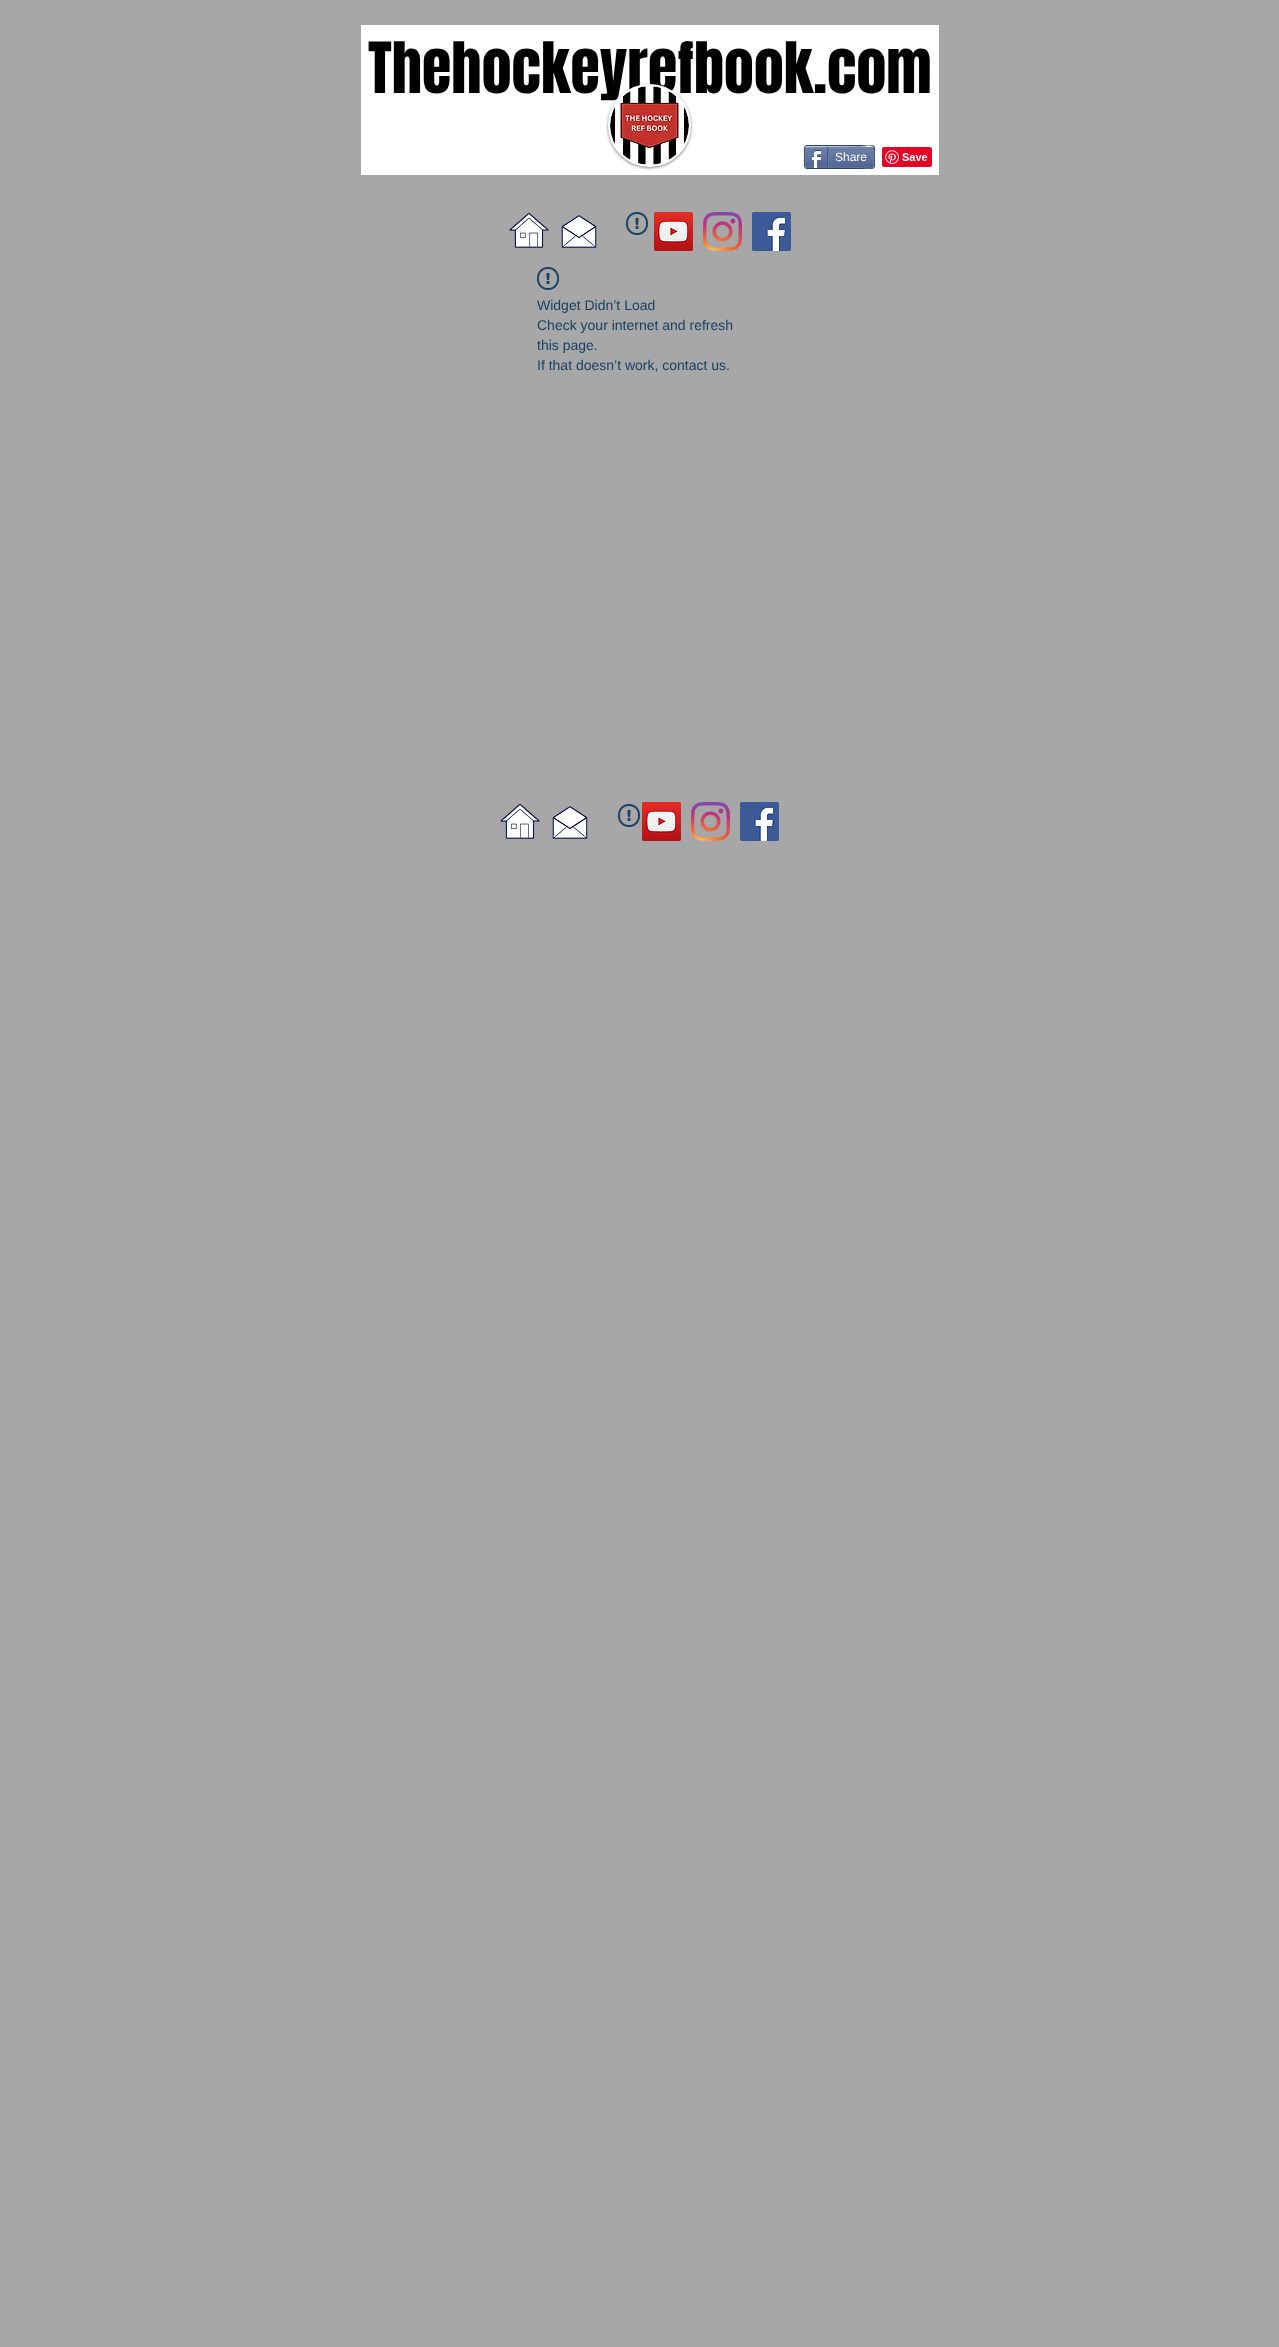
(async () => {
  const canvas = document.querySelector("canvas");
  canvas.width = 1279;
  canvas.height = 2347;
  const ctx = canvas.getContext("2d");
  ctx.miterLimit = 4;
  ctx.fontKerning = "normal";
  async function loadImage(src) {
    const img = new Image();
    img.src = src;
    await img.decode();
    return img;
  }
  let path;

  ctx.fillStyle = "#a7a7a7";
  ctx.fillRect(0, 0, 1279, 2347);
  ctx.fillStyle = "#ffffff";
  ctx.fillRect(361, 25, 578, 150);
  ctx.fillStyle = "rgba(0, 0, 0, 0.5)";
  ctx.filter = "blur(1.5px)";
  ctx.beginPath();
  ctx.roundRect(608, 85, 83, 83, 41.5);
  ctx.fill();
  ctx.filter = "none";
  ctx.beginPath();
  ctx.roundRect(804.5, 145.5, 70, 23, 2.5);
  ctx.strokeStyle = "#2d4565";
  ctx.stroke();
  ctx.drawImage(await loadImage("img/2.png"), 805, 147, 69, 21);
  path = new Path2D("M806 147L861 146.5C865 146.5 870 144 873 147");
  ctx.strokeStyle = "#9aabc6";
  ctx.stroke(path);
  path = new Path2D("M873 147C874 147.5 874 166.5 873 167");
  ctx.strokeStyle = "#6f83ad";
  ctx.stroke(path);
  path = new Path2D("M873 167C870 170 865 167.5 861 167.5L806 167");
  ctx.strokeStyle = "#6176a3";
  ctx.stroke(path);
  path = new Path2D("M806 167C805 166.5 805 147.5 806 147");
  ctx.strokeStyle = "#6f83ad";
  ctx.stroke(path);
  ctx.drawImage(await loadImage("img/3.png"), 811, 150, 10, 18);
  ctx.fillStyle = "#425e85";
  ctx.fillRect(827, 147, 1, 21);
  ctx.fillStyle = "#6176a3";
  ctx.fillRect(828, 147, 1, 20);
  ctx.drawImage(await loadImage("img/4.png"), 882, 147, 50, 20);
  ctx.drawImage(await loadImage("img/5.png"), 509, 213, 40, 35);
  ctx.drawImage(await loadImage("img/6.png"), 561, 215, 36, 33);
  ctx.drawImage(await loadImage("img/7.png"), 626, 212, 22, 23);
  ctx.drawImage(await loadImage("img/8.png"), 654, 212, 39, 39);
  ctx.drawImage(await loadImage("img/9.png"), 703, 212, 39, 39);
  ctx.drawImage(await loadImage("img/10.png"), 752, 212, 39, 39);
  ctx.drawImage(await loadImage("img/7.png"), 537, 267, 22, 23);
  ctx.drawImage(await loadImage("img/5.png"), 500, 804, 40, 35);
  ctx.drawImage(await loadImage("img/6.png"), 552, 806, 36, 33);
  ctx.drawImage(await loadImage("img/7.png"), 618, 804, 22, 23);
  ctx.drawImage(await loadImage("img/8.png"), 642, 802, 39, 39);
  ctx.drawImage(await loadImage("img/9.png"), 691, 802, 39, 39);
  ctx.drawImage(await loadImage("img/10.png"), 740, 802, 39, 39);
  ctx.font = "60px Anton";
  ctx.fillStyle = "#000000";
  ctx.fillText("Thehockeyrefbook.com", 368, 93);
  ctx.fillStyle = "#ffffff";
  ctx.beginPath();
  ctx.arc(649.5, 125.5, 40.5, 0, Math.PI * 2);
  ctx.fill();
  ctx.strokeStyle = "#ffffff";
  ctx.lineWidth = 2;
  ctx.stroke();
  ctx.drawImage(await loadImage("img/1.png"), 610, 86, 79, 79);
  ctx.font = "12px Liberation Sans";
  ctx.fillText("Share", 835, 161);
  ctx.font = "14px Liberation Sans";
  ctx.fillStyle = "#174165";
  for (const [text, x, y] of [
    ["Widget Didn’t Load", 537, 310],
    ["Check your internet and refresh", 537, 330],
    ["this page.", 537, 350],
    ["If that doesn’t work, contact us.", 537, 370],
  ]) {
    ctx.fillText(text, x, y);
  }
})();
